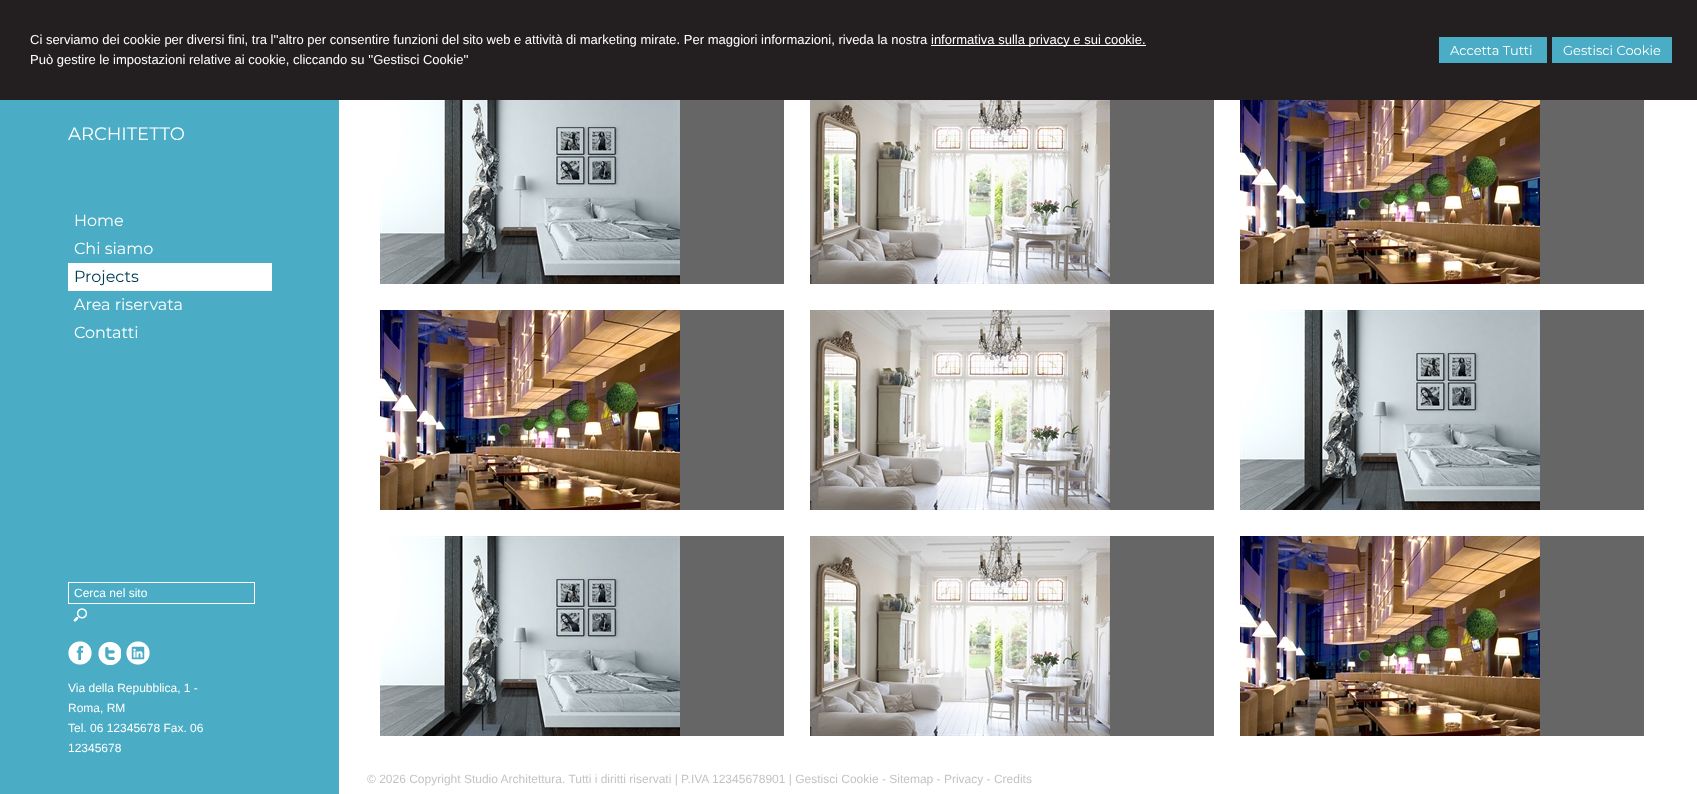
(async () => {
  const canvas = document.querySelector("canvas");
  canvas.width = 1697;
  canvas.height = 794;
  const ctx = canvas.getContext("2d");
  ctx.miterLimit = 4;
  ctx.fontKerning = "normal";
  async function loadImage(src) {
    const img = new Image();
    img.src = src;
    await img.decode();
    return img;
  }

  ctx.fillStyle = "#ffffff";
  ctx.fillRect(0, 0, 1697, 794);
  for (const [x, y, w, h, color] of [
    [0, 0, 1697, 100, "#231f20"],
    [931, 45, 215, 1, "#ffffff"],
    [1439, 37, 108, 26, "#4aadc5"],
    [1552, 37, 120, 26, "#4aadc5"],
    [0, 100, 339, 694, "#4aadc5"],
    [68, 263, 204, 28, "#ffffff"],
  ]) {
    ctx.fillStyle = color;
    ctx.fillRect(x, y, w, h);
  }
  ctx.strokeStyle = "#ffffff";
  ctx.strokeRect(68.5, 582.5, 186, 21);
  ctx.drawImage(await loadImage("img/1.png"), 73, 608, 14, 14);
  ctx.drawImage(await loadImage("img/2.png"), 68, 641, 24, 24);
  ctx.drawImage(await loadImage("img/3.png"), 98, 642, 23, 23);
  ctx.drawImage(await loadImage("img/4.png"), 126, 641, 24, 24);
  ctx.fillStyle = "#666666";
  ctx.fillRect(680, 100, 104, 184);
  ctx.drawImage(await loadImage("img/5.png"), 380, 100, 300, 184);
  ctx.fillRect(1110, 100, 104, 184);
  ctx.drawImage(await loadImage("img/6.png"), 810, 100, 300, 184);
  ctx.fillRect(1540, 100, 104, 184);
  ctx.drawImage(await loadImage("img/7.png"), 1240, 100, 300, 184);
  ctx.fillRect(680, 310, 104, 200);
  ctx.drawImage(await loadImage("img/8.png"), 380, 310, 300, 200);
  ctx.fillRect(1110, 310, 104, 200);
  ctx.drawImage(await loadImage("img/9.png"), 810, 310, 300, 200);
  ctx.fillRect(1540, 310, 104, 200);
  ctx.drawImage(await loadImage("img/10.png"), 1240, 310, 300, 200);
  ctx.fillRect(680, 536, 104, 200);
  ctx.drawImage(await loadImage("img/10.png"), 380, 536, 300, 200);
  ctx.fillRect(1110, 536, 104, 200);
  ctx.drawImage(await loadImage("img/9.png"), 810, 536, 300, 200);
  ctx.fillRect(1540, 536, 104, 200);
  ctx.drawImage(await loadImage("img/8.png"), 1240, 536, 300, 200);
  ctx.font = "13px Liberation Sans";
  ctx.fillStyle = "#ffffff";
  for (const [text, x, y] of [
    ["Ci serviamo dei cookie per diversi fini, tra l''altro per consentire funzioni del sito web e attività di marketing mirate. Per maggiori informazioni, riveda la nostra", 30, 44],
    ["informativa sulla privacy e sui cookie.", 931, 44],
    ["Può gestire le impostazioni relative ai cookie, cliccando su ''Gestisci Cookie''", 30, 64],
  ]) {
    ctx.fillText(text, x, y);
  }
  ctx.font = "13px Montserrat";
  ctx.fillText("Accetta Tutti", 1450, 55);
  ctx.fillText("Gestisci Cookie", 1563, 55);
  ctx.font = "18px Montserrat";
  ctx.fillText("ARCHITETTO", 68, 140);
  ctx.font = "16px Montserrat";
  ctx.fillText("Home", 74, 226);
  ctx.fillText("Chi siamo", 74, 254);
  ctx.fillStyle = "#003953";
  ctx.fillText("Projects", 74, 282);
  ctx.fillStyle = "#ffffff";
  ctx.fillText("Area riservata", 74, 310);
  ctx.fillText("Contatti", 74, 338);
  ctx.font = "12px Liberation Sans";
  for (const [text, x, y] of [
    ["Cerca nel sito", 74, 597],
    ["Via della Repubblica, 1 -", 68, 692],
    ["Roma, RM", 68, 712],
    ["Tel. 06 12345678 Fax. 06", 68, 732],
    ["12345678", 68, 752],
  ]) {
    ctx.fillText(text, x, y);
  }
  ctx.fillStyle = "#c2c4c4";
  ctx.fillText("© 2026 Copyright Studio Architettura. Tutti i diritti riservati | P.IVA 12345678901 | Gestisci Cookie - Sitemap - Privacy - Credits", 367, 783);
})();
